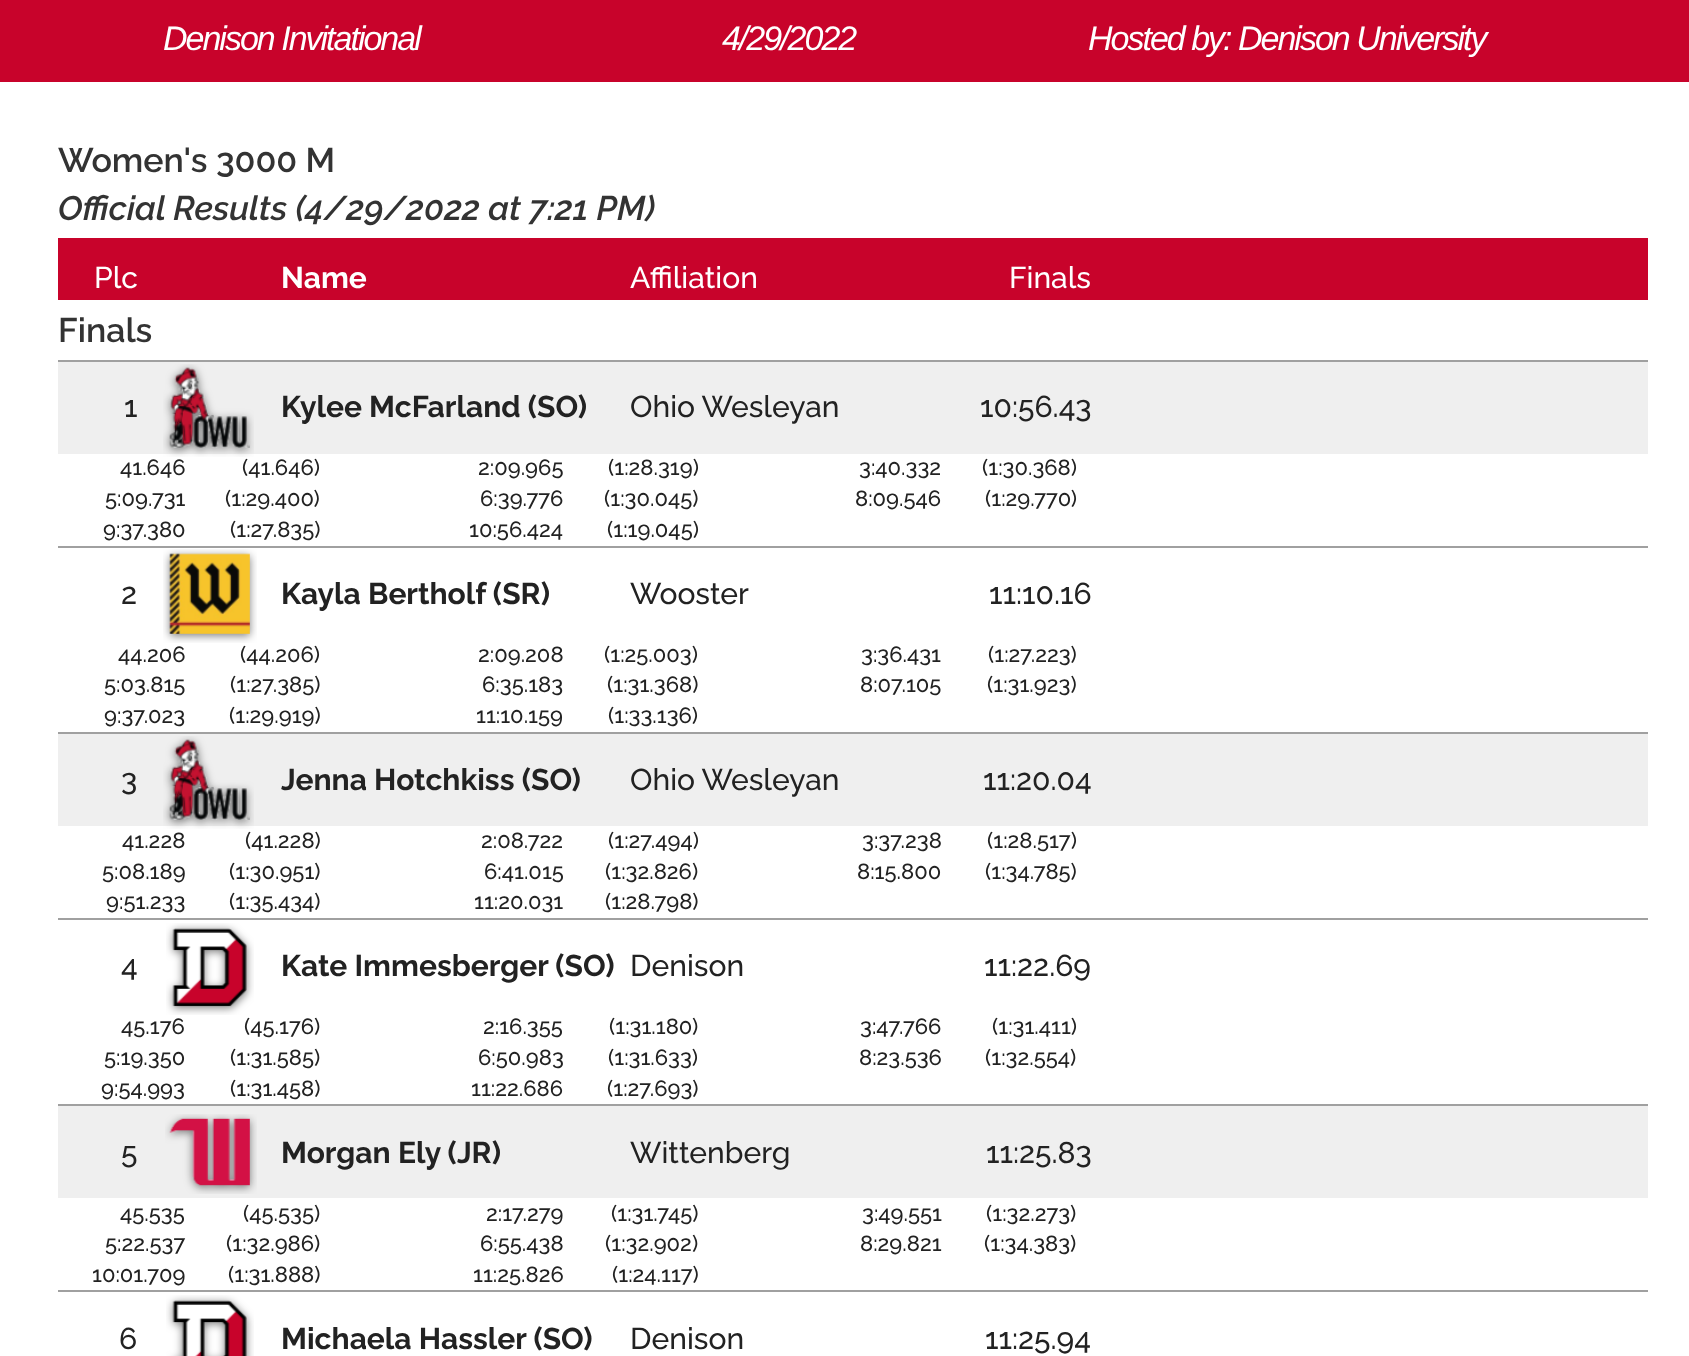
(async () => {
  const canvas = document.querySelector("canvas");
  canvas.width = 1689;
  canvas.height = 1356;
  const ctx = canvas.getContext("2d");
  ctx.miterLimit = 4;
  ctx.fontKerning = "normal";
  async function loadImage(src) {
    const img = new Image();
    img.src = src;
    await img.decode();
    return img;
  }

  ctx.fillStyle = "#ffffff";
  ctx.fillRect(0, 0, 1689, 1356);
  for (const [x, y, w, h, color] of [
    [0, 0, 1689, 82, "#c8032b"],
    [58, 238, 1590, 62, "#c8032b"],
    [58, 362, 1590, 92, "#efefef"],
    [58, 360, 1590, 2, "#a0a0a0"],
  ]) {
    ctx.fillStyle = color;
    ctx.fillRect(x, y, w, h);
  }
  ctx.drawImage(await loadImage("img/1.png"), 163, 364, 91, 93);
  ctx.fillRect(58, 546, 1590, 2);
  ctx.drawImage(await loadImage("img/2.png"), 163, 549, 94, 94);
  ctx.fillStyle = "#efefef";
  ctx.fillRect(58, 734, 1590, 92);
  ctx.fillStyle = "#a0a0a0";
  ctx.fillRect(58, 732, 1590, 2);
  ctx.drawImage(await loadImage("img/1.png"), 163, 736, 91, 93);
  ctx.fillRect(58, 918, 1590, 2);
  ctx.drawImage(await loadImage("img/3.png"), 166, 923, 88, 92);
  ctx.fillStyle = "#efefef";
  ctx.fillRect(58, 1106, 1590, 92);
  ctx.fillStyle = "#a0a0a0";
  ctx.fillRect(58, 1104, 1590, 2);
  ctx.drawImage(await loadImage("img/4.png"), 165, 1114, 92, 80);
  ctx.fillRect(58, 1290, 1590, 2);
  ctx.drawImage(await loadImage("img/5.png"), 166, 1295, 88, 61);
  ctx.letterSpacing = "-2px";
  ctx.font = "italic 34px Liberation Sans";
  ctx.fillStyle = "#ffffff";
  for (const [text, x, y] of [
    ["Denison Invitational", 163, 50],
    ["4/29/2022", 722, 50],
    ["Hosted by: Denison University", 1088, 50],
  ]) {
    ctx.fillText(text, x, y);
  }
  ctx.letterSpacing = "0px";
  ctx.font = "600 34px Raleway";
  ctx.fillStyle = "#333333";
  ctx.fillText("Women's 3000 M", 58, 172);
  ctx.font = "italic 600 34px Raleway";
  ctx.fillText("Official Results (4/29/2022 at 7:21 PM)", 58, 220);
  ctx.font = "500 30px Raleway";
  ctx.fillStyle = "#ffffff";
  ctx.fillText("Plc", 94, 288);
  ctx.font = "bold 30px Raleway";
  ctx.fillText("Name", 281, 288);
  ctx.font = "500 30px Raleway";
  ctx.fillText("Affiliation", 630, 288);
  ctx.fillText("Finals", 1009, 288);
  ctx.font = "600 34px Raleway";
  ctx.fillStyle = "#333333";
  ctx.fillText("Finals", 58, 342);
  ctx.font = "500 30px Raleway";
  ctx.fillStyle = "#222222";
  ctx.fillText("1", 124, 417);
  ctx.font = "bold 30px Raleway";
  ctx.fillText("Kylee McFarland (SO)", 281, 417);
  ctx.font = "500 30px Raleway";
  ctx.fillText("Ohio Wesleyan", 630, 417);
  ctx.fillText("10:56.43", 980, 417);
  ctx.font = "500 22px Raleway";
  for (const [text, x, y] of [
    ["41.646", 120, 475],
    ["(41.646)", 242, 475],
    ["2:09.965", 478, 475],
    ["(1:28.319)", 608, 475],
    ["3:40.332", 859, 475],
    ["(1:30.368)", 982, 475],
    ["5:09.731", 105, 506],
    ["(1:29.400)", 225, 506],
    ["6:39.776", 480, 506],
    ["(1:30.045)", 604, 506],
    ["8:09.546", 855, 506],
    ["(1:29.770)", 985, 506],
    ["9:37.380", 103, 537],
    ["(1:27.835)", 230, 537],
    ["10:56.424", 469, 537],
    ["(1:19.045)", 607, 537],
  ]) {
    ctx.fillText(text, x, y);
  }
  ctx.font = "500 30px Raleway";
  ctx.fillText("2", 121, 604);
  ctx.font = "bold 30px Raleway";
  ctx.fillText("Kayla Bertholf (SR)", 281, 604);
  ctx.font = "500 30px Raleway";
  ctx.fillText("Wooster", 630, 604);
  ctx.fillText("11:10.16", 989, 604);
  ctx.font = "500 22px Raleway";
  for (const [text, x, y] of [
    ["44.206", 118, 662],
    ["(44.206)", 240, 662],
    ["2:09.208", 478, 662],
    ["(1:25.003)", 604, 662],
    ["3:36.431", 861, 662],
    ["(1:27.223)", 988, 662],
    ["5:03.815", 104, 692],
    ["(1:27.385)", 230, 692],
    ["6:35.183", 482, 692],
    ["(1:31.368)", 607, 692],
    ["8:07.105", 860, 692],
    ["(1:31.923)", 987, 692],
    ["9:37.023", 104, 723],
    ["(1:29.919)", 229, 723],
    ["11:10.159", 476, 723],
    ["(1:33.136)", 608, 723],
  ]) {
    ctx.fillText(text, x, y);
  }
  ctx.font = "500 30px Raleway";
  ctx.fillText("3", 121, 790);
  ctx.font = "bold 30px Raleway";
  ctx.fillText("Jenna Hotchkiss (SO)", 281, 790);
  ctx.font = "500 30px Raleway";
  ctx.fillText("Ohio Wesleyan", 630, 790);
  ctx.fillText("11:20.04", 983, 790);
  ctx.font = "500 22px Raleway";
  for (const [text, x, y] of [
    ["41.228", 122, 848],
    ["(41.228)", 245, 848],
    ["2:08.722", 481, 848],
    ["(1:27.494)", 608, 848],
    ["3:37.238", 862, 848],
    ["(1:28.517)", 987, 848],
    ["5:08.189", 102, 879],
    ["(1:30.951)", 229, 879],
    ["6:41.015", 484, 879],
    ["(1:32.826)", 605, 879],
    ["8:15.800", 857, 879],
    ["(1:34.785)", 985, 879],
    ["9:51.233", 106, 909],
    ["(1:35.434)", 229, 909],
    ["11:20.031", 474, 909],
    ["(1:28.798)", 605, 909],
  ]) {
    ctx.fillText(text, x, y);
  }
  ctx.font = "500 30px Raleway";
  ctx.fillText("4", 121, 976);
  ctx.font = "bold 30px Raleway";
  ctx.fillText("Kate Immesberger (SO)", 281, 976);
  ctx.font = "500 30px Raleway";
  ctx.fillText("Denison", 630, 976);
  ctx.fillText("11:22.69", 984, 976);
  ctx.font = "500 22px Raleway";
  for (const [text, x, y] of [
    ["45.176", 121, 1034],
    ["(45.176)", 244, 1034],
    ["2:16.355", 483, 1034],
    ["(1:31.180)", 609, 1034],
    ["3:47.766", 860, 1034],
    ["(1:31.411)", 992, 1034],
    ["5:19.350", 104, 1065],
    ["(1:31.585)", 230, 1065],
    ["6:50.983", 478, 1065],
    ["(1:31.633)", 608, 1065],
    ["8:23.536", 859, 1065],
    ["(1:32.554)", 985, 1065],
    ["9:54.993", 101, 1096],
    ["(1:31.458)", 230, 1096],
    ["11:22.686", 471, 1096],
    ["(1:27.693)", 607, 1096],
  ]) {
    ctx.fillText(text, x, y);
  }
  ctx.font = "500 30px Raleway";
  ctx.fillText("5", 121, 1163);
  ctx.font = "bold 30px Raleway";
  ctx.fillText("Morgan Ely (JR)", 281, 1163);
  ctx.font = "500 30px Raleway";
  ctx.fillText("Wittenberg", 630, 1163);
  ctx.fillText("11:25.83", 986, 1163);
  ctx.font = "500 22px Raleway";
  for (const [text, x, y] of [
    ["45.535", 120, 1221],
    ["(45.535)", 243, 1221],
    ["2:17.279", 486, 1221],
    ["(1:31.745)", 611, 1221],
    ["3:49.551", 862, 1221],
    ["(1:32.273)", 986, 1221],
    ["5:22.537", 105, 1251],
    ["(1:32.986)", 226, 1251],
    ["6:55.438", 480, 1251],
    ["(1:32.902)", 605, 1251],
    ["8:29.821", 860, 1251],
    ["(1:34.383)", 984, 1251],
    ["10:01.709", 92, 1282],
    ["(1:31.888)", 228, 1282],
    ["11:25.826", 473, 1282],
    ["(1:24.117)", 612, 1282],
  ]) {
    ctx.fillText(text, x, y);
  }
  ctx.font = "500 30px Raleway";
  ctx.fillText("6", 119, 1349);
  ctx.font = "bold 30px Raleway";
  ctx.fillText("Michaela Hassler (SO)", 281, 1349);
  ctx.font = "500 30px Raleway";
  ctx.fillText("Denison", 630, 1349);
  ctx.fillText("11:25.94", 985, 1349);
})();
